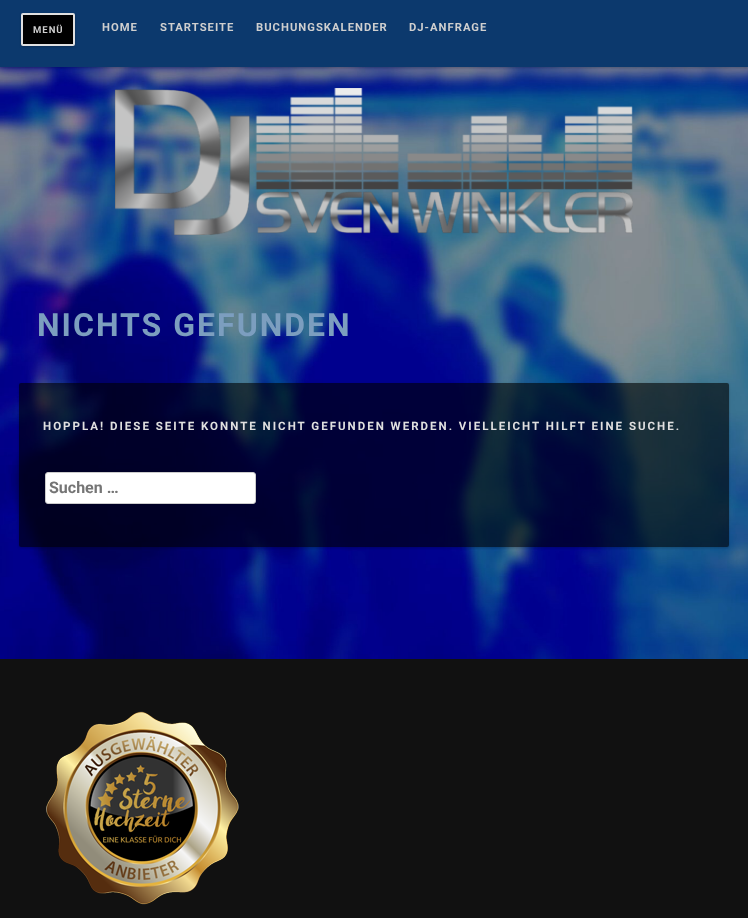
(async () => {
  const canvas = document.querySelector("canvas");
  canvas.width = 748;
  canvas.height = 918;
  const ctx = canvas.getContext("2d");
  ctx.miterLimit = 4;
  ctx.fontKerning = "normal";
  async function loadImage(src) {
    const img = new Image();
    img.src = src;
    await img.decode();
    return img;
  }
  let path;

  ctx.fillStyle = "#ffffff";
  ctx.fillRect(0, 0, 748, 918);
  ctx.drawImage(await loadImage("img/1.png"), 0, 67, 748, 592);
  ctx.fillStyle = "rgba(0, 0, 0, 0.2)";
  ctx.filter = "blur(1px)";
  ctx.beginPath();
  ctx.rect(0, 1, 748, 67);
  ctx.fill();
  ctx.filter = "none";
  ctx.fillStyle = "#0c396d";
  ctx.fillRect(0, 0, 748, 67);
  ctx.fillStyle = "rgba(0, 0, 0, 0.2)";
  ctx.filter = "blur(1px)";
  ctx.beginPath();
  ctx.roundRect(21, 14, 54, 33, 2);
  ctx.fill();
  ctx.filter = "none";
  ctx.fillStyle = "#000000";
  ctx.beginPath();
  ctx.roundRect(22, 14, 52, 31, 1);
  ctx.fill();
  ctx.strokeStyle = "#e0e0e0";
  ctx.lineWidth = 2;
  ctx.stroke();
  ctx.drawImage(await loadImage("img/2.png"), 115, 88, 518, 147);
  ctx.save();
  path = new Path2D("M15 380H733V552H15ZM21 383H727C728 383 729 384 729 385V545C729 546 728 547 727 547H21C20 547 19 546 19 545V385C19 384 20 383 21 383Z");
  ctx.clip(path, "evenodd");
  ctx.fillStyle = "rgba(0, 0, 0, 0.2)";
  ctx.filter = "blur(1px)";
  ctx.beginPath();
  ctx.roundRect(19, 384, 710, 164, 2);
  ctx.fill();
  ctx.filter = "none";
  ctx.restore();
  ctx.fillStyle = "rgba(0, 0, 0, 0.6)";
  ctx.beginPath();
  ctx.roundRect(19, 383, 710, 164, 2);
  ctx.fill();
  ctx.fillStyle = "#ffffff";
  ctx.beginPath();
  ctx.roundRect(45.5, 472.5, 210, 31, 2.5);
  ctx.fill();
  ctx.strokeStyle = "#cccccc";
  ctx.lineWidth = 1;
  ctx.stroke();
  ctx.fillStyle = "#111111";
  ctx.fillRect(0, 659, 748, 259);
  ctx.drawImage(await loadImage("img/3.png"), 46, 711, 193, 194);
  ctx.letterSpacing = "1px";
  ctx.font = "bold 9.5px Roboto";
  ctx.fillStyle = "#cfcfcf";
  ctx.fillText("MENÜ", 33, 33);
  ctx.font = "bold 11.25px Roboto";
  for (const [text, x, y] of [
    ["HOME", 102, 31],
    ["STARTSEITE", 160, 31],
    ["BUCHUNGSKALENDER", 256, 31],
    ["DJ-ANFRAGE", 409, 31],
  ]) {
    ctx.fillText(text, x, y);
  }
  ctx.letterSpacing = "2px";
  ctx.font = "bold 32px Roboto";
  ctx.fillStyle = "#7c9ebf";
  ctx.fillText("NICHTS GEFUNDEN", 37, 336);
  ctx.font = "bold 11.52px Roboto";
  ctx.fillStyle = "#e0e0e0";
  ctx.fillText("HOPPLA! DIESE SEITE KONNTE NICHT GEFUNDEN WERDEN. VIELLEICHT HILFT EINE SUCHE.", 43, 430);
  ctx.letterSpacing = "0px";
  ctx.font = "bold 16px Roboto";
  ctx.fillStyle = "#757575";
  ctx.fillText("Suchen …", 49, 493);
})();
